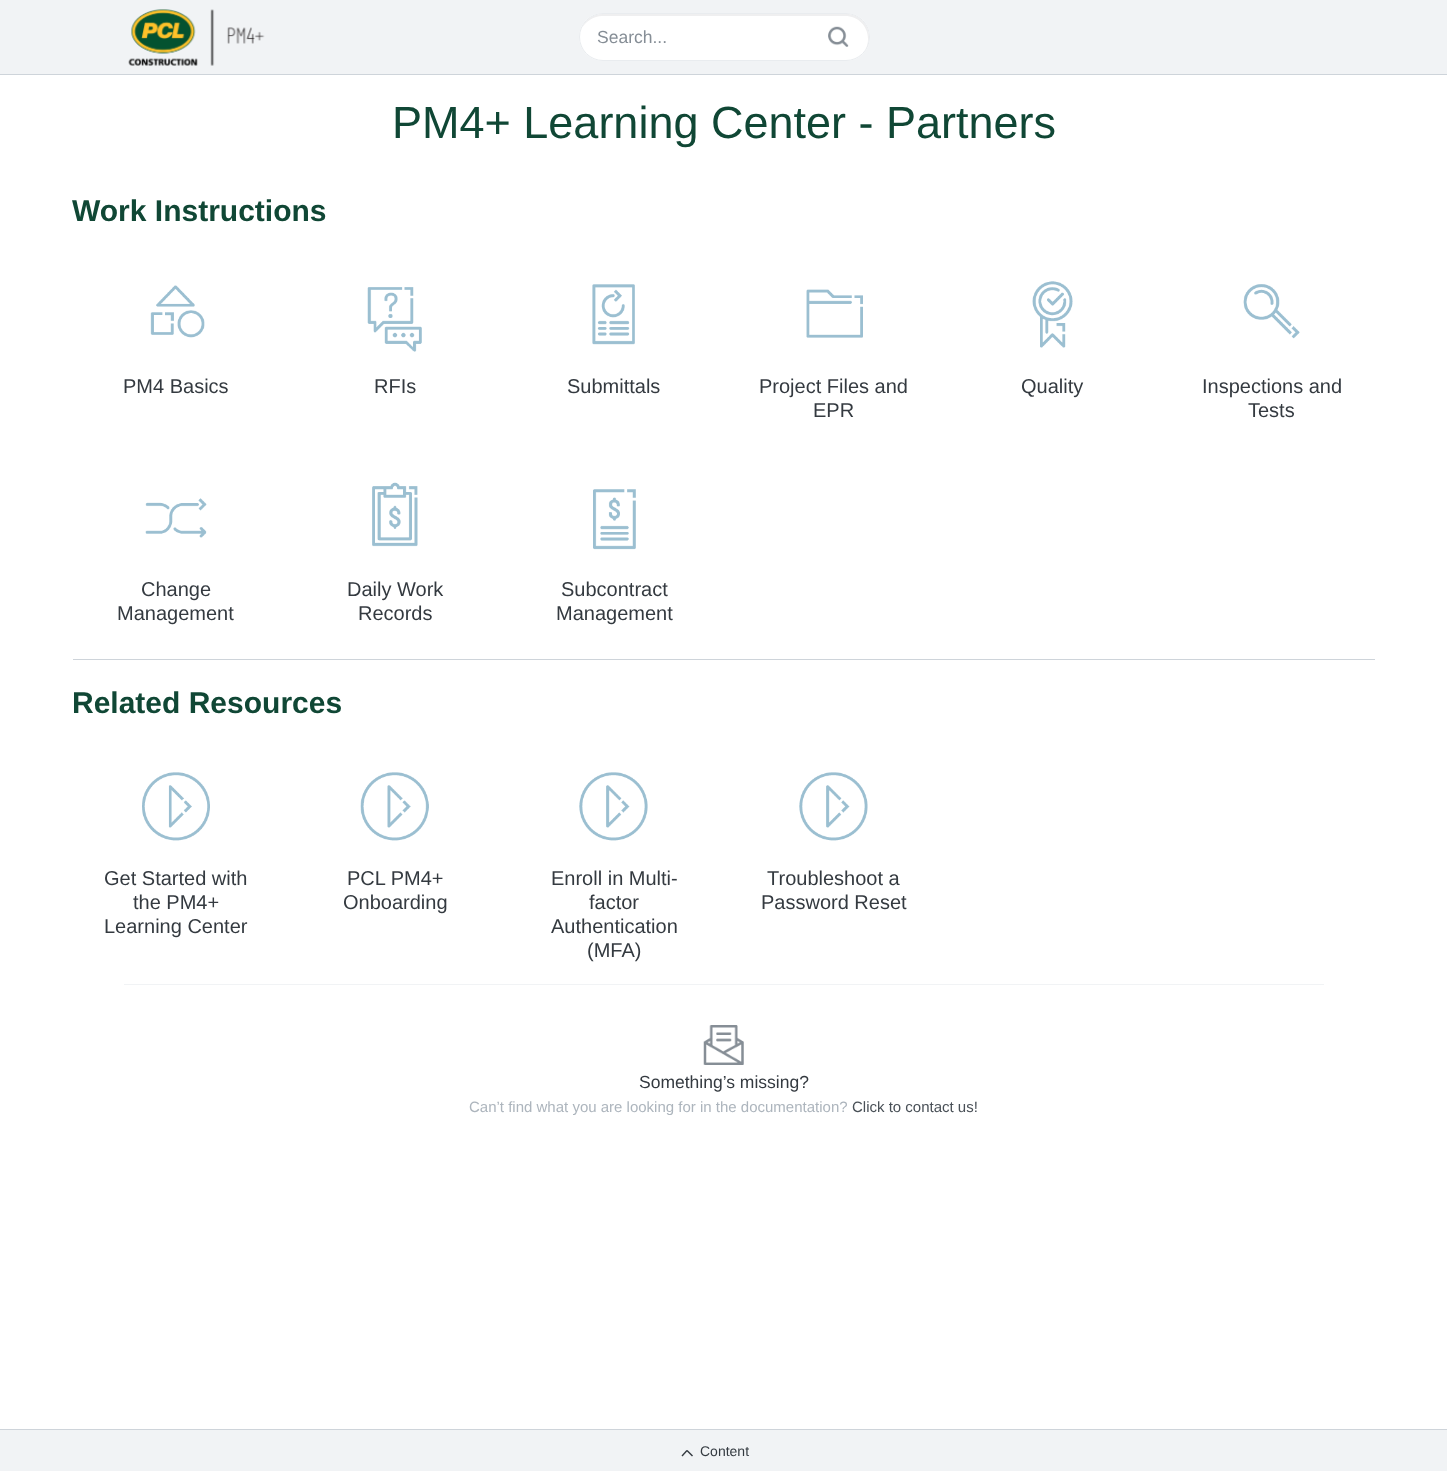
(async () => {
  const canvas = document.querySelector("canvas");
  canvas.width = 1447;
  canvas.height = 1471;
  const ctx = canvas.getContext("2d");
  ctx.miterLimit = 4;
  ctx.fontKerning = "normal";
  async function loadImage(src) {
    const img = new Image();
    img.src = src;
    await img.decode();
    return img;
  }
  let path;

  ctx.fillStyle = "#ffffff";
  ctx.fillRect(0, 0, 1447, 1471);
  ctx.fillStyle = "#f1f3f5";
  ctx.fillRect(0, 0, 1447, 74);
  ctx.fillStyle = "#ced4da";
  ctx.fillRect(0, 74, 1447, 1);
  ctx.drawImage(await loadImage("img/1.png"), 128, 9, 137, 57);
  ctx.fillStyle = "#ffffff";
  ctx.beginPath();
  ctx.roundRect(579, 13, 291, 48, 24);
  ctx.fill();
  ctx.drawImage(await loadImage("img/2.png"), 828, 26, 21, 21);
  ctx.fillStyle = "#efeff0";
  path = new Path2D("M602 16H845C858 16 868 26 868 39C868 43 867 46 866 49C868 46 869 41 869 37C869 24 859 14 846 14H603C593 14 585 20 582 28C586 21 594 16 602 16Z");
  ctx.fill(path);
  ctx.beginPath();
  ctx.roundRect(579.5, 13.5, 290, 47, 23.5);
  ctx.strokeStyle = "#e9ecef";
  ctx.stroke();
  ctx.drawImage(await loadImage("img/3.png"), 150, 285, 55, 53);
  ctx.drawImage(await loadImage("img/4.png"), 367, 287, 55, 65);
  ctx.drawImage(await loadImage("img/5.png"), 592, 284, 43, 61);
  ctx.drawImage(await loadImage("img/6.png"), 806, 289, 57, 49);
  ctx.drawImage(await loadImage("img/7.png"), 1032, 281, 41, 67);
  ctx.drawImage(await loadImage("img/8.png"), 1243, 284, 57, 55);
  ctx.drawImage(await loadImage("img/9.png"), 145, 498, 62, 40);
  ctx.drawImage(await loadImage("img/10.png"), 372, 482, 46, 65);
  ctx.drawImage(await loadImage("img/11.png"), 593, 489, 43, 61);
  ctx.fillStyle = "#ced4da";
  ctx.fillRect(73, 659, 1302, 1);
  ctx.drawImage(await loadImage("img/12.png"), 142, 772, 68, 69);
  ctx.drawImage(await loadImage("img/13.png"), 360, 772, 69, 69);
  ctx.drawImage(await loadImage("img/14.png"), 579, 772, 69, 69);
  ctx.drawImage(await loadImage("img/15.png"), 799, 772, 69, 69);
  ctx.fillStyle = "#f1f3f5";
  ctx.fillRect(124, 984, 1200, 1);
  ctx.drawImage(await loadImage("img/16.png"), 703, 1025, 41, 40);
  ctx.fillRect(0, 1430, 1447, 41);
  ctx.fillStyle = "#ced4da";
  ctx.fillRect(0, 1429, 1447, 1);
  ctx.fillStyle = "#343a40";
  path = new Path2D("M681.5 1455.5L686.5 1450L687.5 1451L682.5 1456.5Z");
  ctx.fill(path);
  path = new Path2D("M692 1456.5L686.5 1451L687.5 1450L693 1455.5Z");
  ctx.fill(path);
  ctx.font = "17.5px Liberation Sans";
  ctx.fillStyle = "#868e96";
  ctx.fillText("Search...", 597, 43);
  ctx.font = "45px Liberation Sans";
  ctx.fillStyle = "#104735";
  ctx.fillText("PM4+ Learning Center - Partners", 392, 138);
  ctx.font = "bold 30px Liberation Sans";
  ctx.fillText("Work Instructions", 72, 221);
  ctx.font = "20px Liberation Sans";
  ctx.fillStyle = "#343a40";
  for (const [text, x, y] of [
    ["PM4 Basics", 123, 393],
    ["RFIs", 374, 393],
    ["Submittals", 567, 393],
    ["Project Files and", 759, 393],
    ["EPR", 813, 417],
    ["Quality", 1021, 393],
    ["Inspections and", 1202, 393],
    ["Tests", 1248, 417],
    ["Change", 141, 596],
    ["Management", 117, 620],
    ["Daily Work", 347, 596],
    ["Records", 358, 620],
    ["Subcontract", 561, 596],
    ["Management", 556, 620],
  ]) {
    ctx.fillText(text, x, y);
  }
  ctx.font = "bold 30px Liberation Sans";
  ctx.fillStyle = "#104735";
  ctx.fillText("Related Resources", 72, 713);
  ctx.font = "20px Liberation Sans";
  ctx.fillStyle = "#343a40";
  for (const [text, x, y] of [
    ["Get Started with", 104, 885],
    ["the PM4+", 133, 909],
    ["Learning Center", 104, 933],
    ["PCL PM4+", 347, 885],
    ["Onboarding", 343, 909],
    ["Enroll in Multi-", 551, 885],
    ["factor", 589, 909],
    ["Authentication", 551, 933],
    ["(MFA)", 587, 957],
    ["Troubleshoot a", 767, 885],
    ["Password Reset", 761, 909],
  ]) {
    ctx.fillText(text, x, y);
  }
  ctx.font = "17.5px Liberation Sans";
  ctx.fillText("Something’s missing?", 639, 1088);
  ctx.font = "15px Liberation Sans";
  ctx.fillStyle = "#adb5bd";
  ctx.fillText("Can’t find what you are looking for in the documentation?", 469, 1112);
  ctx.fillStyle = "#495057";
  ctx.fillText("Click to contact us!", 852, 1112);
  ctx.font = "14px Liberation Sans";
  ctx.fillStyle = "#343a40";
  ctx.fillText("Content", 700, 1456);
})();
